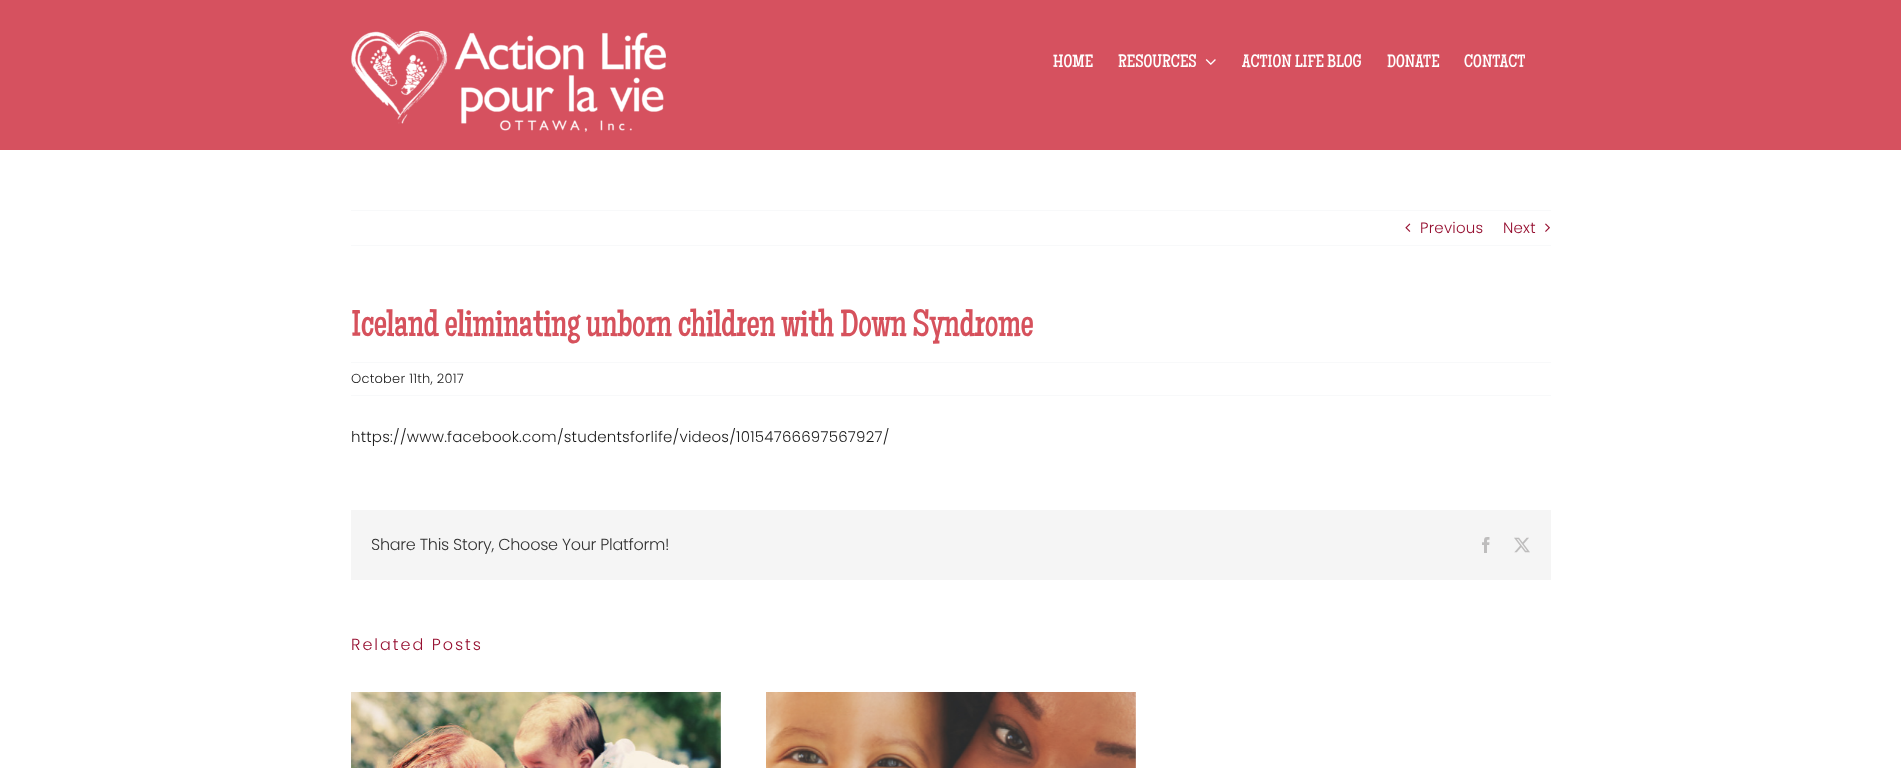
(async () => {
  const canvas = document.querySelector("canvas");
  canvas.width = 1901;
  canvas.height = 768;
  const ctx = canvas.getContext("2d");
  ctx.miterLimit = 4;
  ctx.fontKerning = "normal";
  async function loadImage(src) {
    const img = new Image();
    img.src = src;
    await img.decode();
    return img;
  }

  ctx.fillStyle = "#ffffff";
  ctx.fillRect(0, 0, 1901, 768);
  ctx.fillStyle = "#d6515f";
  ctx.fillRect(0, 0, 1901, 150);
  ctx.drawImage(await loadImage("img/1.png"), 351, 31, 315, 101);
  ctx.drawImage(await loadImage("img/2.png"), 1205, 59, 11, 6);
  ctx.fillStyle = "#f8f9fa";
  ctx.fillRect(351, 210, 1200, 1);
  ctx.fillRect(351, 245, 1200, 1);
  ctx.drawImage(await loadImage("img/3.png"), 1405, 223, 6, 9);
  ctx.drawImage(await loadImage("img/4.png"), 1545, 223, 5, 9);
  for (const [x, y, w, h, color] of [
    [351, 362, 1200, 1, "#f8f9fa"],
    [351, 395, 1200, 1, "#f8f9fa"],
    [351, 510, 1200, 70, "#f5f5f5"],
  ]) {
    ctx.fillStyle = color;
    ctx.fillRect(x, y, w, h);
  }
  ctx.drawImage(await loadImage("img/5.png"), 1482, 537, 8, 16);
  ctx.drawImage(await loadImage("img/6.png"), 1514, 537, 16, 16);
  ctx.drawImage(await loadImage("img/7.png"), 351, 692, 370, 76);
  ctx.drawImage(await loadImage("img/8.png"), 766, 692, 370, 76);
  ctx.font = "18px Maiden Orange";
  ctx.fillStyle = "#ffffff";
  for (const [text, x, y] of [
    ["HOME", 1053, 67],
    ["RESOURCES", 1118, 67],
    ["ACTION LIFE BLOG", 1242, 67],
    ["DONATE", 1387, 67],
    ["CONTACT", 1464, 67],
  ]) {
    ctx.fillText(text, x, y);
  }
  ctx.letterSpacing = "0.23px";
  ctx.font = "300 15px Poppins";
  ctx.fillStyle = "#960f30";
  ctx.fillText("Previous", 1420, 233);
  ctx.fillText("Next", 1503, 233);
  ctx.letterSpacing = "-0.57px";
  ctx.font = "38px Maiden Orange";
  ctx.fillStyle = "#d6515c";
  ctx.fillText("Iceland eliminating unborn children with Down Syndrome", 351, 336);
  ctx.letterSpacing = "0.23px";
  ctx.font = "300 13px Poppins";
  ctx.fillStyle = "#1c1c1c";
  ctx.fillText("October 11th, 2017", 351, 383);
  ctx.font = "300 15px Poppins";
  ctx.fillText("https://www.facebook.com/studentsforlife/videos/10154766697567927/", 351, 442);
  ctx.letterSpacing = "-0.25px";
  ctx.font = "300 16px Poppins";
  ctx.fillStyle = "#333333";
  ctx.fillText("Share This Story, Choose Your Platform!", 371, 550);
  ctx.letterSpacing = "2px";
  ctx.fillStyle = "#960f30";
  ctx.fillText("Related Posts", 351, 650);
})();
